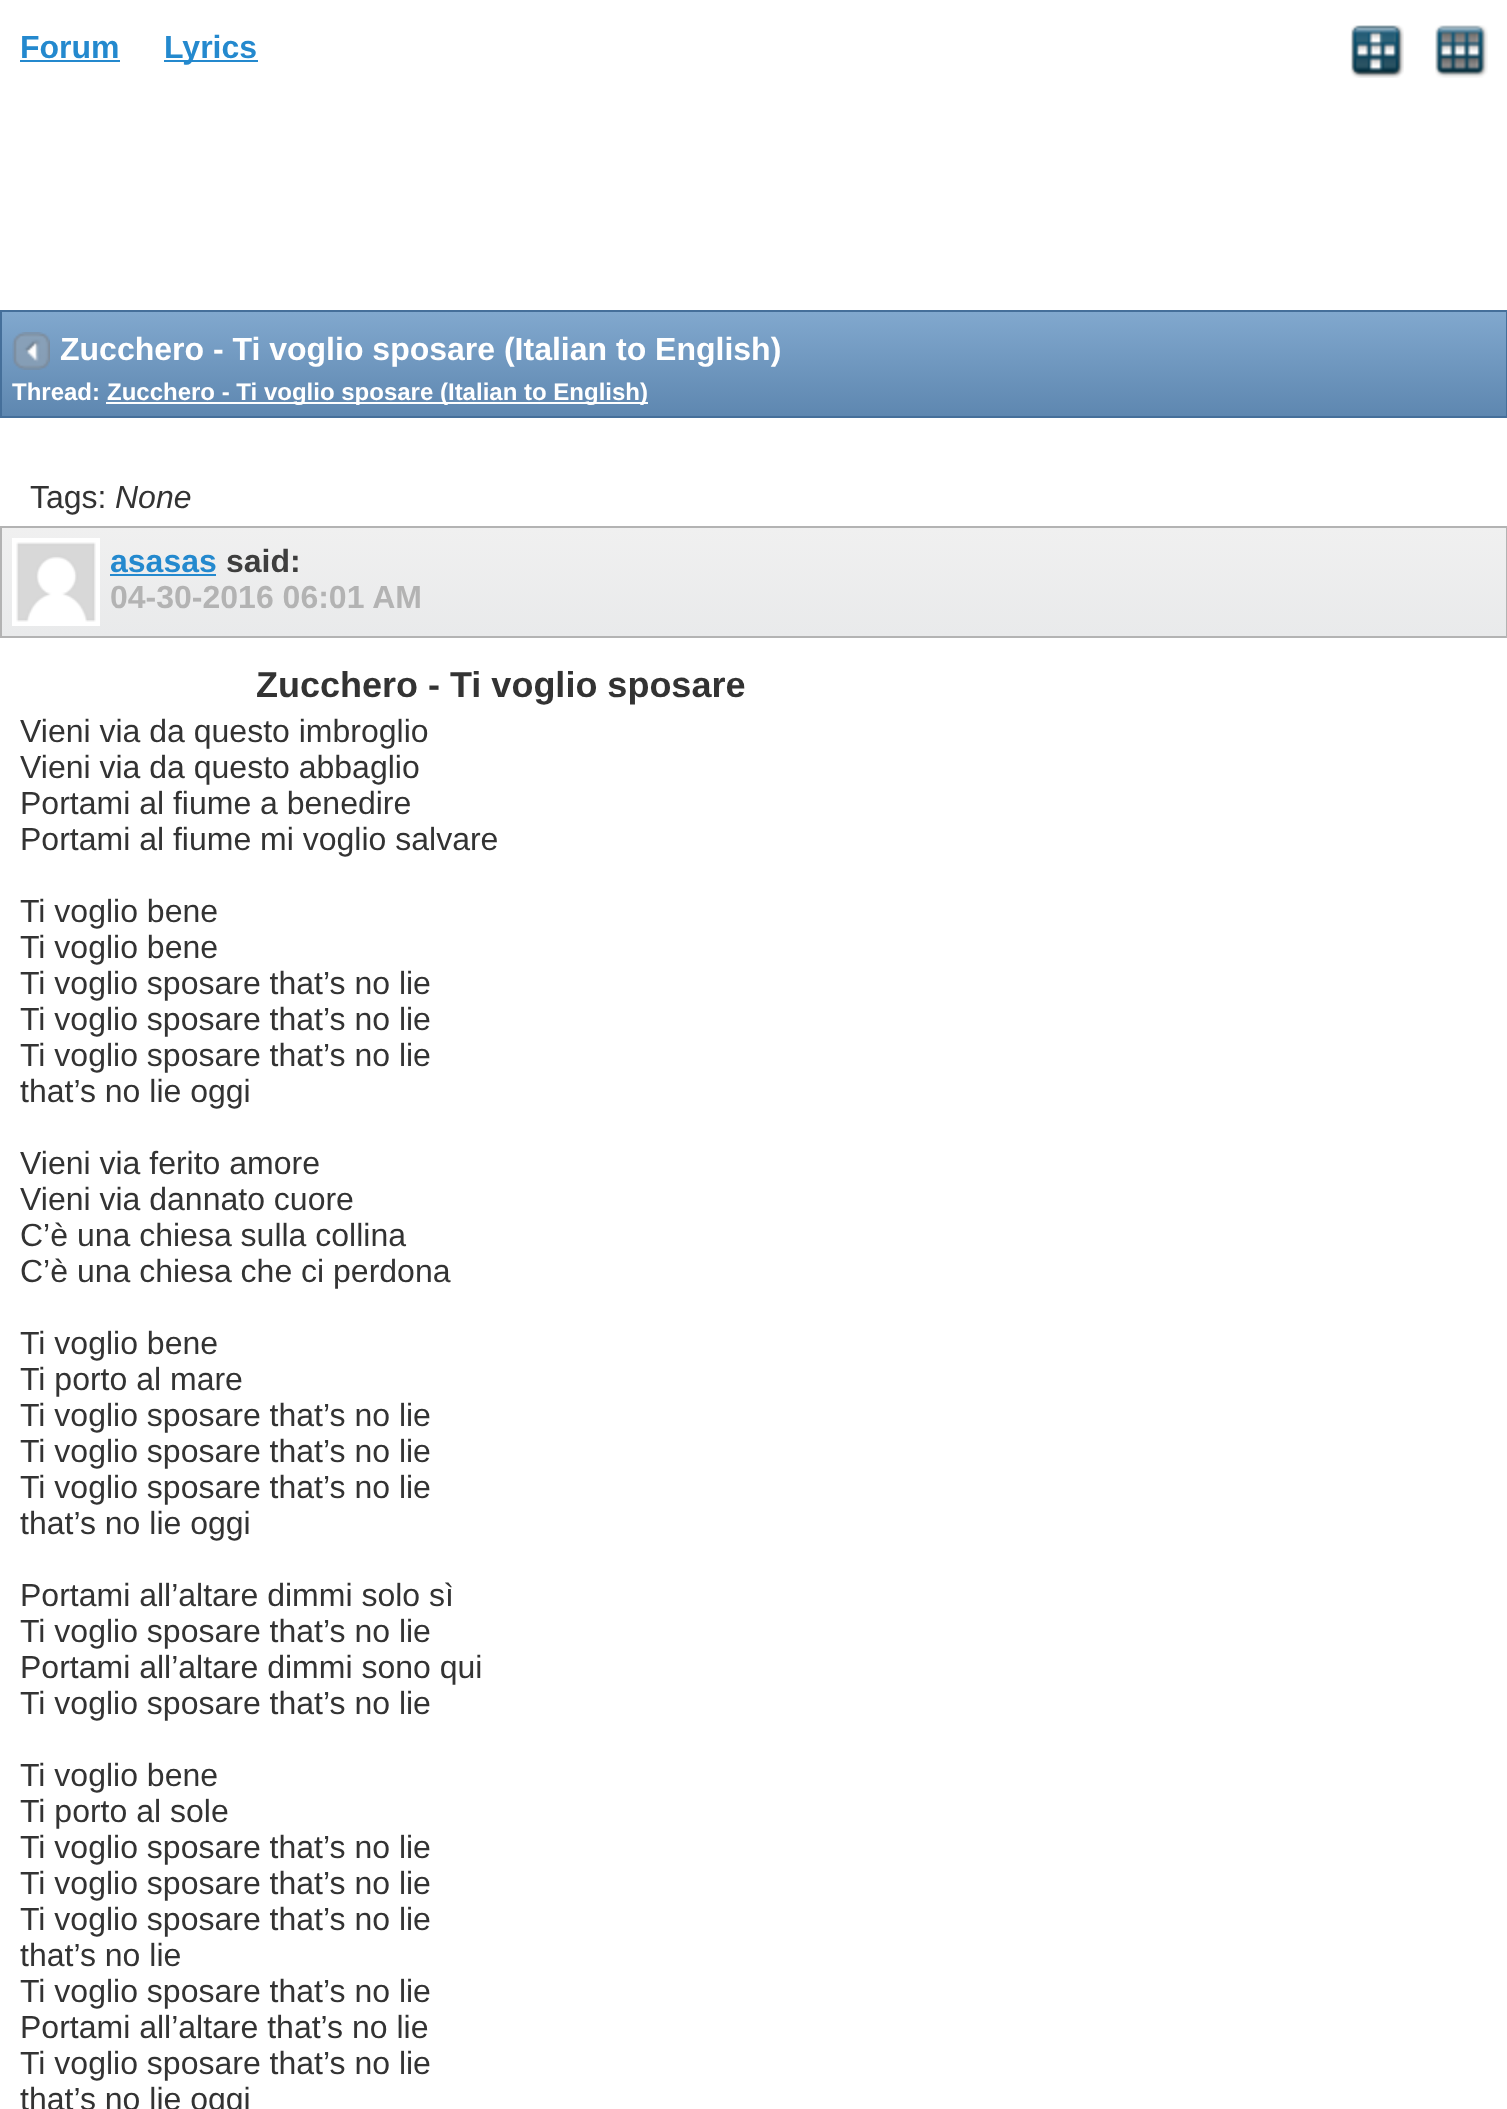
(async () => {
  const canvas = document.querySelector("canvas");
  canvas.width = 1507;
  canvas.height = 2109;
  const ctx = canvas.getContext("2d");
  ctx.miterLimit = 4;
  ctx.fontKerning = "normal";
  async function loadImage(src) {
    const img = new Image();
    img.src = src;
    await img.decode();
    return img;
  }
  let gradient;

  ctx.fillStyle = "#ffffff";
  ctx.fillRect(0, 0, 1507, 2109);
  ctx.fillStyle = "#2489ce";
  ctx.fillRect(20, 60, 100, 2);
  ctx.fillRect(164, 60, 94, 2);
  ctx.drawImage(await loadImage("img/1.png"), 1350, 25, 54, 53);
  ctx.drawImage(await loadImage("img/2.png"), 1435, 25, 53, 53);
  gradient = ctx.createLinearGradient(754, 312, 754, 416);
  gradient.addColorStop(0, "#81a8ce");
  gradient.addColorStop(1, "#5e87b0");
  ctx.fillStyle = gradient;
  ctx.fillRect(2, 312, 1504, 104);
  ctx.strokeStyle = "#456f9a";
  ctx.lineWidth = 2;
  ctx.strokeRect(1, 311, 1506, 106);
  ctx.drawImage(await loadImage("img/3.png"), 12, 332, 38, 38);
  ctx.fillStyle = "#ffffff";
  ctx.fillRect(106, 402, 542, 2);
  gradient = ctx.createLinearGradient(754, 528, 754, 636);
  gradient.addColorStop(0, "#f0f0f0");
  gradient.addColorStop(1, "#e9eaeb");
  ctx.fillStyle = gradient;
  ctx.fillRect(2, 528, 1504, 108);
  ctx.strokeStyle = "#b3b3b3";
  ctx.strokeRect(1, 527, 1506, 110);
  ctx.drawImage(await loadImage("img/4.png"), 12, 538, 88, 88);
  ctx.fillStyle = "#2489ce";
  ctx.fillRect(110, 574, 106, 2);
  ctx.font = "bold 32px Liberation Sans";
  ctx.fillText("Forum", 20, 58);
  ctx.fillText("Lyrics", 164, 58);
  ctx.fillStyle = "#ffffff";
  ctx.fillText("Zucchero - Ti voglio sposare (Italian to English)", 60, 360);
  ctx.font = "bold 24px Liberation Sans";
  ctx.fillText("Thread:", 12, 400);
  ctx.fillText("Zucchero - Ti voglio sposare (Italian to English)", 107, 400);
  ctx.font = "32px Liberation Sans";
  ctx.fillStyle = "#333333";
  ctx.fillText("Tags:", 30, 508);
  ctx.font = "italic 32px Liberation Sans";
  ctx.fillText("None", 115, 508);
  ctx.font = "bold 32px Liberation Sans";
  ctx.fillStyle = "#2489ce";
  ctx.fillText("asasas", 110, 572);
  ctx.fillStyle = "#3e3e3e";
  ctx.fillText("said:", 226, 572);
  ctx.fillStyle = "#b3b3b3";
  ctx.fillText("04-30-2016 06:01 AM", 110, 608);
  ctx.font = "bold 36px Liberation Sans";
  ctx.fillStyle = "#333333";
  ctx.fillText("Zucchero - Ti voglio sposare", 256, 697);
  ctx.font = "32px Liberation Sans";
  for (const [text, x, y] of [
    ["Vieni via da questo imbroglio", 20, 742],
    ["Vieni via da questo abbaglio", 20, 778],
    ["Portami al fiume a benedire", 20, 814],
    ["Portami al fiume mi voglio salvare", 20, 850],
    ["Ti voglio bene", 20, 922],
    ["Ti voglio bene", 20, 958],
    ["Ti voglio sposare that’s no lie", 20, 994],
    ["Ti voglio sposare that’s no lie", 20, 1030],
    ["Ti voglio sposare that’s no lie", 20, 1066],
    ["that’s no lie oggi", 20, 1102],
    ["Vieni via ferito amore", 20, 1174],
    ["Vieni via dannato cuore", 20, 1210],
    ["C’è una chiesa sulla collina", 20, 1246],
    ["C’è una chiesa che ci perdona", 20, 1282],
    ["Ti voglio bene", 20, 1354],
    ["Ti porto al mare", 20, 1390],
    ["Ti voglio sposare that’s no lie", 20, 1426],
    ["Ti voglio sposare that’s no lie", 20, 1462],
    ["Ti voglio sposare that’s no lie", 20, 1498],
    ["that’s no lie oggi", 20, 1534],
    ["Portami all’altare dimmi solo sì", 20, 1606],
    ["Ti voglio sposare that’s no lie", 20, 1642],
    ["Portami all’altare dimmi sono qui", 20, 1678],
    ["Ti voglio sposare that’s no lie", 20, 1714],
    ["Ti voglio bene", 20, 1786],
    ["Ti porto al sole", 20, 1822],
    ["Ti voglio sposare that’s no lie", 20, 1858],
    ["Ti voglio sposare that’s no lie", 20, 1894],
    ["Ti voglio sposare that’s no lie", 20, 1930],
    ["that’s no lie", 20, 1966],
    ["Ti voglio sposare that’s no lie", 20, 2002],
    ["Portami all’altare that’s no lie", 20, 2038],
    ["Ti voglio sposare that’s no lie", 20, 2074],
    ["that’s no lie oggi", 20, 2110],
  ]) {
    ctx.fillText(text, x, y);
  }
})();
